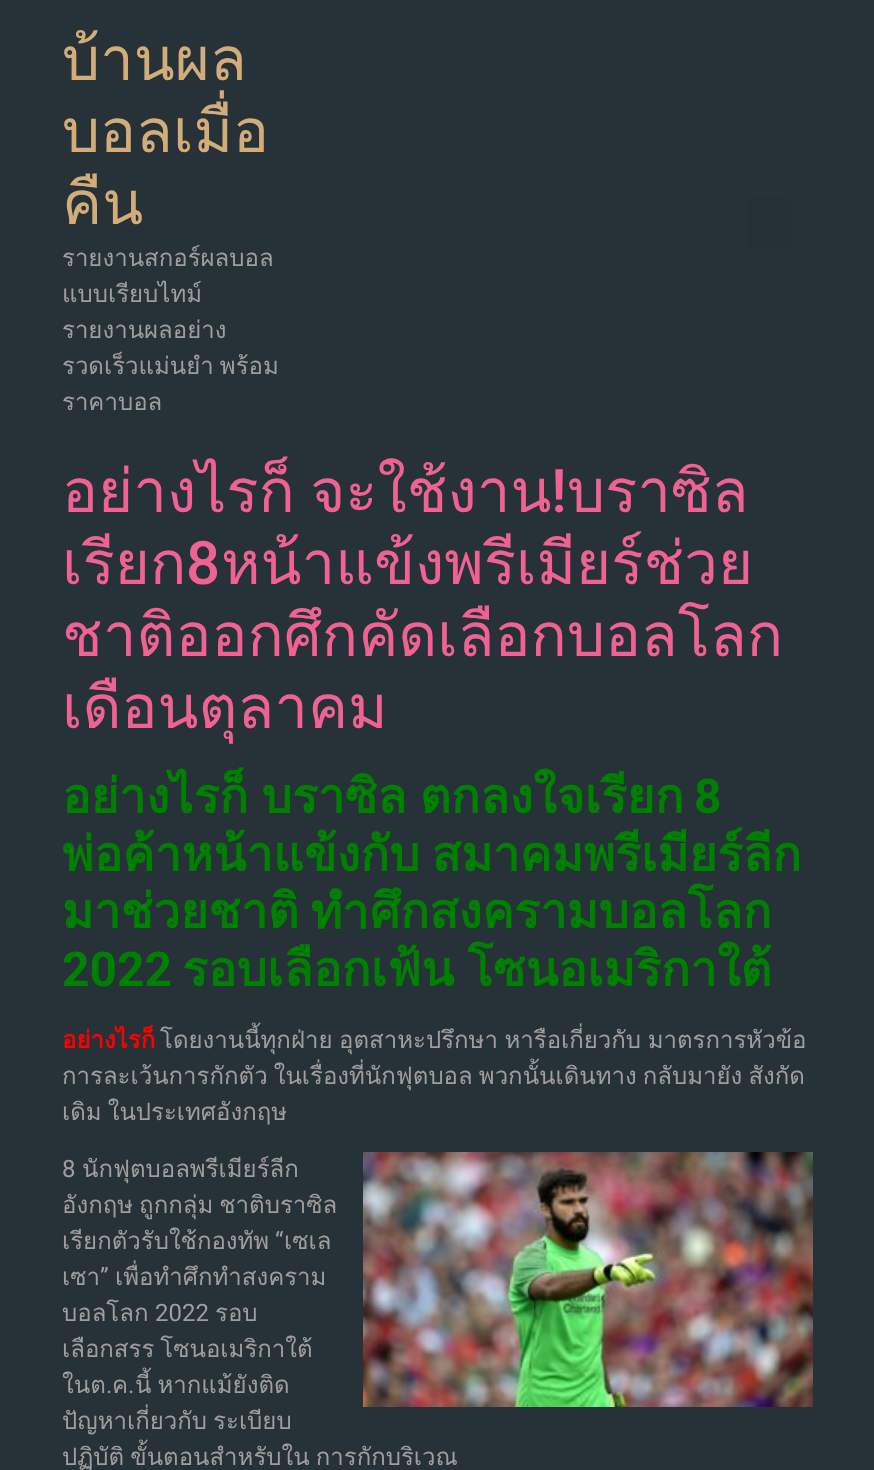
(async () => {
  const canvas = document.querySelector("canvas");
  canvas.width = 874;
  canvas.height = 1470;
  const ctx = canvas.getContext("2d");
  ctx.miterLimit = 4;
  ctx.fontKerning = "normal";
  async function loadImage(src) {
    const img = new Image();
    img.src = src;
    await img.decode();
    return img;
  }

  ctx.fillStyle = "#263238";
  ctx.fillRect(0, 0, 874, 1470);
  ctx.fillStyle = "#243035";
  ctx.beginPath();
  ctx.roundRect(747, 198, 44, 50, 5);
  ctx.fill();
  ctx.drawImage(await loadImage("img/1.png"), 363, 1152, 450, 255);
  ctx.font = "60px Loma";
  ctx.fillStyle = "#d3ad79";
  for (const [text, x, y] of [
    ["บ้านผล", 62, 80],
    ["บอลเมื่อ", 62, 152],
    ["คืน", 62, 224],
  ]) {
    ctx.fillText(text, x, y);
  }
  ctx.font = "24px Loma";
  ctx.fillStyle = "#a29d9d";
  for (const [text, x, y] of [
    ["รายงานสกอร์ผลบอล", 62, 266],
    ["แบบเรียบไทม์", 62, 302],
    ["รายงานผลอย่าง", 62, 338],
  ]) {
    ctx.fillText(text, x, y);
  }
  ctx.wordSpacing = "-2px";
  ctx.fillText("รวดเร็วแม่นยำ พร้อม", 62, 374);
  ctx.wordSpacing = "0px";
  ctx.fillText("ราคาบอล", 62, 410);
  ctx.wordSpacing = "-5px";
  ctx.font = "60px Loma";
  ctx.fillStyle = "#f06292";
  ctx.fillText("อย่างไรก็ จะใช้งาน", 62, 512);
  ctx.wordSpacing = "0px";
  ctx.font = "500 60px Roboto";
  ctx.fillText("!", 551, 512);
  ctx.font = "60px Loma";
  ctx.fillText("บราซิล", 567, 512);
  ctx.fillText("เรียก", 62, 584);
  ctx.font = "500 60px Roboto";
  ctx.fillText("8", 186, 584);
  ctx.font = "60px Loma";
  for (const [text, x, y] of [
    ["หน้าแข้งพรีเมียร์ช่วย", 221, 584],
    ["ชาติออกศึกคัดเลือกบอลโลก", 62, 656],
    ["เดือนตุลาคม", 62, 728],
  ]) {
    ctx.fillText(text, x, y);
  }
  ctx.wordSpacing = "-3px";
  ctx.font = "bold 48px Loma";
  ctx.fillStyle = "#008000";
  ctx.fillText("อย่างไรก็ บราซิล ตกลงใจเรียก", 62, 813);
  ctx.wordSpacing = "0px";
  ctx.font = "bold 48px Roboto";
  ctx.fillText("8", 694, 813);
  ctx.wordSpacing = "-4px";
  ctx.font = "bold 48px Loma";
  ctx.fillText("พ่อค้าหน้าแข้งกับ สมาคมพรีเมียร์ลีก", 62, 871);
  ctx.fillText("มาช่วยชาติ ทำศึกสงครามบอลโลก", 62, 928);
  ctx.wordSpacing = "0px";
  ctx.font = "bold 48px Roboto";
  ctx.fillText("2022", 62, 986);
  ctx.wordSpacing = "-3px";
  ctx.font = "bold 48px Loma";
  ctx.fillText("รอบเลือกเฟ้น โซนอเมริกาใต้", 182, 986);
  ctx.wordSpacing = "0px";
  ctx.font = "bold 24px Loma";
  ctx.fillStyle = "#ff0000";
  ctx.fillText("อย่างไรก็", 62, 1048);
  ctx.wordSpacing = "-1.5px";
  ctx.font = "24px Loma";
  ctx.fillStyle = "#a29d9d";
  ctx.fillText("โดยงานนี้ทุกฝ่าย อุตสาหะปรึกษา หารือเกี่ยวกับ มาตรการหัวข้อ", 160, 1048);
  ctx.wordSpacing = "-2px";
  ctx.fillText("การละเว้นการกักตัว ในเรื่องที่นักฟุตบอล พวกนั้นเดินทาง กลับมายัง สังกัด", 62, 1084);
  ctx.fillText("เดิม ในประเทศอังกฤษ", 62, 1120);
  ctx.wordSpacing = "0px";
  ctx.font = "24px Roboto";
  ctx.fillText("8", 62, 1177);
  ctx.font = "24px Loma";
  ctx.fillText("นักฟุตบอลพรีเมียร์ลีก", 82, 1177);
  ctx.wordSpacing = "-2px";
  ctx.fillText("อังกฤษ ถูกกลุ่ม ชาติบราซิล", 62, 1213);
  ctx.wordSpacing = "0px";
  ctx.fillText("เรียกตัวรับใช้กองทัพ", 62, 1249);
  ctx.font = "24px Roboto";
  ctx.fillText("“", 275, 1249);
  ctx.font = "24px Loma";
  ctx.fillText("เซเล", 284, 1249);
  ctx.font = "24px Roboto";
  ctx.fillText("”", 100, 1285);
  ctx.font = "24px Loma";
  for (const [text, x, y] of [
    ["เพื่อทำศึกทำสงคราม", 115, 1285],
    ["เซา", 62, 1285],
    ["บอลโลก", 62, 1321],
  ]) {
    ctx.fillText(text, x, y);
  }
  ctx.font = "24px Roboto";
  ctx.fillText("2022", 155, 1321);
  ctx.font = "24px Loma";
  ctx.fillText("รอบ", 215, 1321);
  ctx.wordSpacing = "-2px";
  ctx.fillText("เลือกสรร โซนอเมริกาใต้", 62, 1357);
  ctx.wordSpacing = "0px";
  ctx.fillText("ในต", 62, 1393);
  ctx.font = "24px Roboto";
  ctx.fillText(".", 106, 1393);
  ctx.font = "24px Loma";
  ctx.fillText("ค", 112, 1393);
  ctx.font = "24px Roboto";
  ctx.fillText(".", 128, 1393);
  ctx.wordSpacing = "-2px";
  ctx.font = "24px Loma";
  for (const [text, x, y] of [
    ["นี้ หากแม้ยังติด", 135, 1393],
    ["ปัญหาเกี่ยวกับ ระเบียบ", 62, 1429],
    ["ปฏิบัติ ขั้นตอนสำหรับใน การกักบริเวณ", 62, 1465],
  ]) {
    ctx.fillText(text, x, y);
  }
})();
